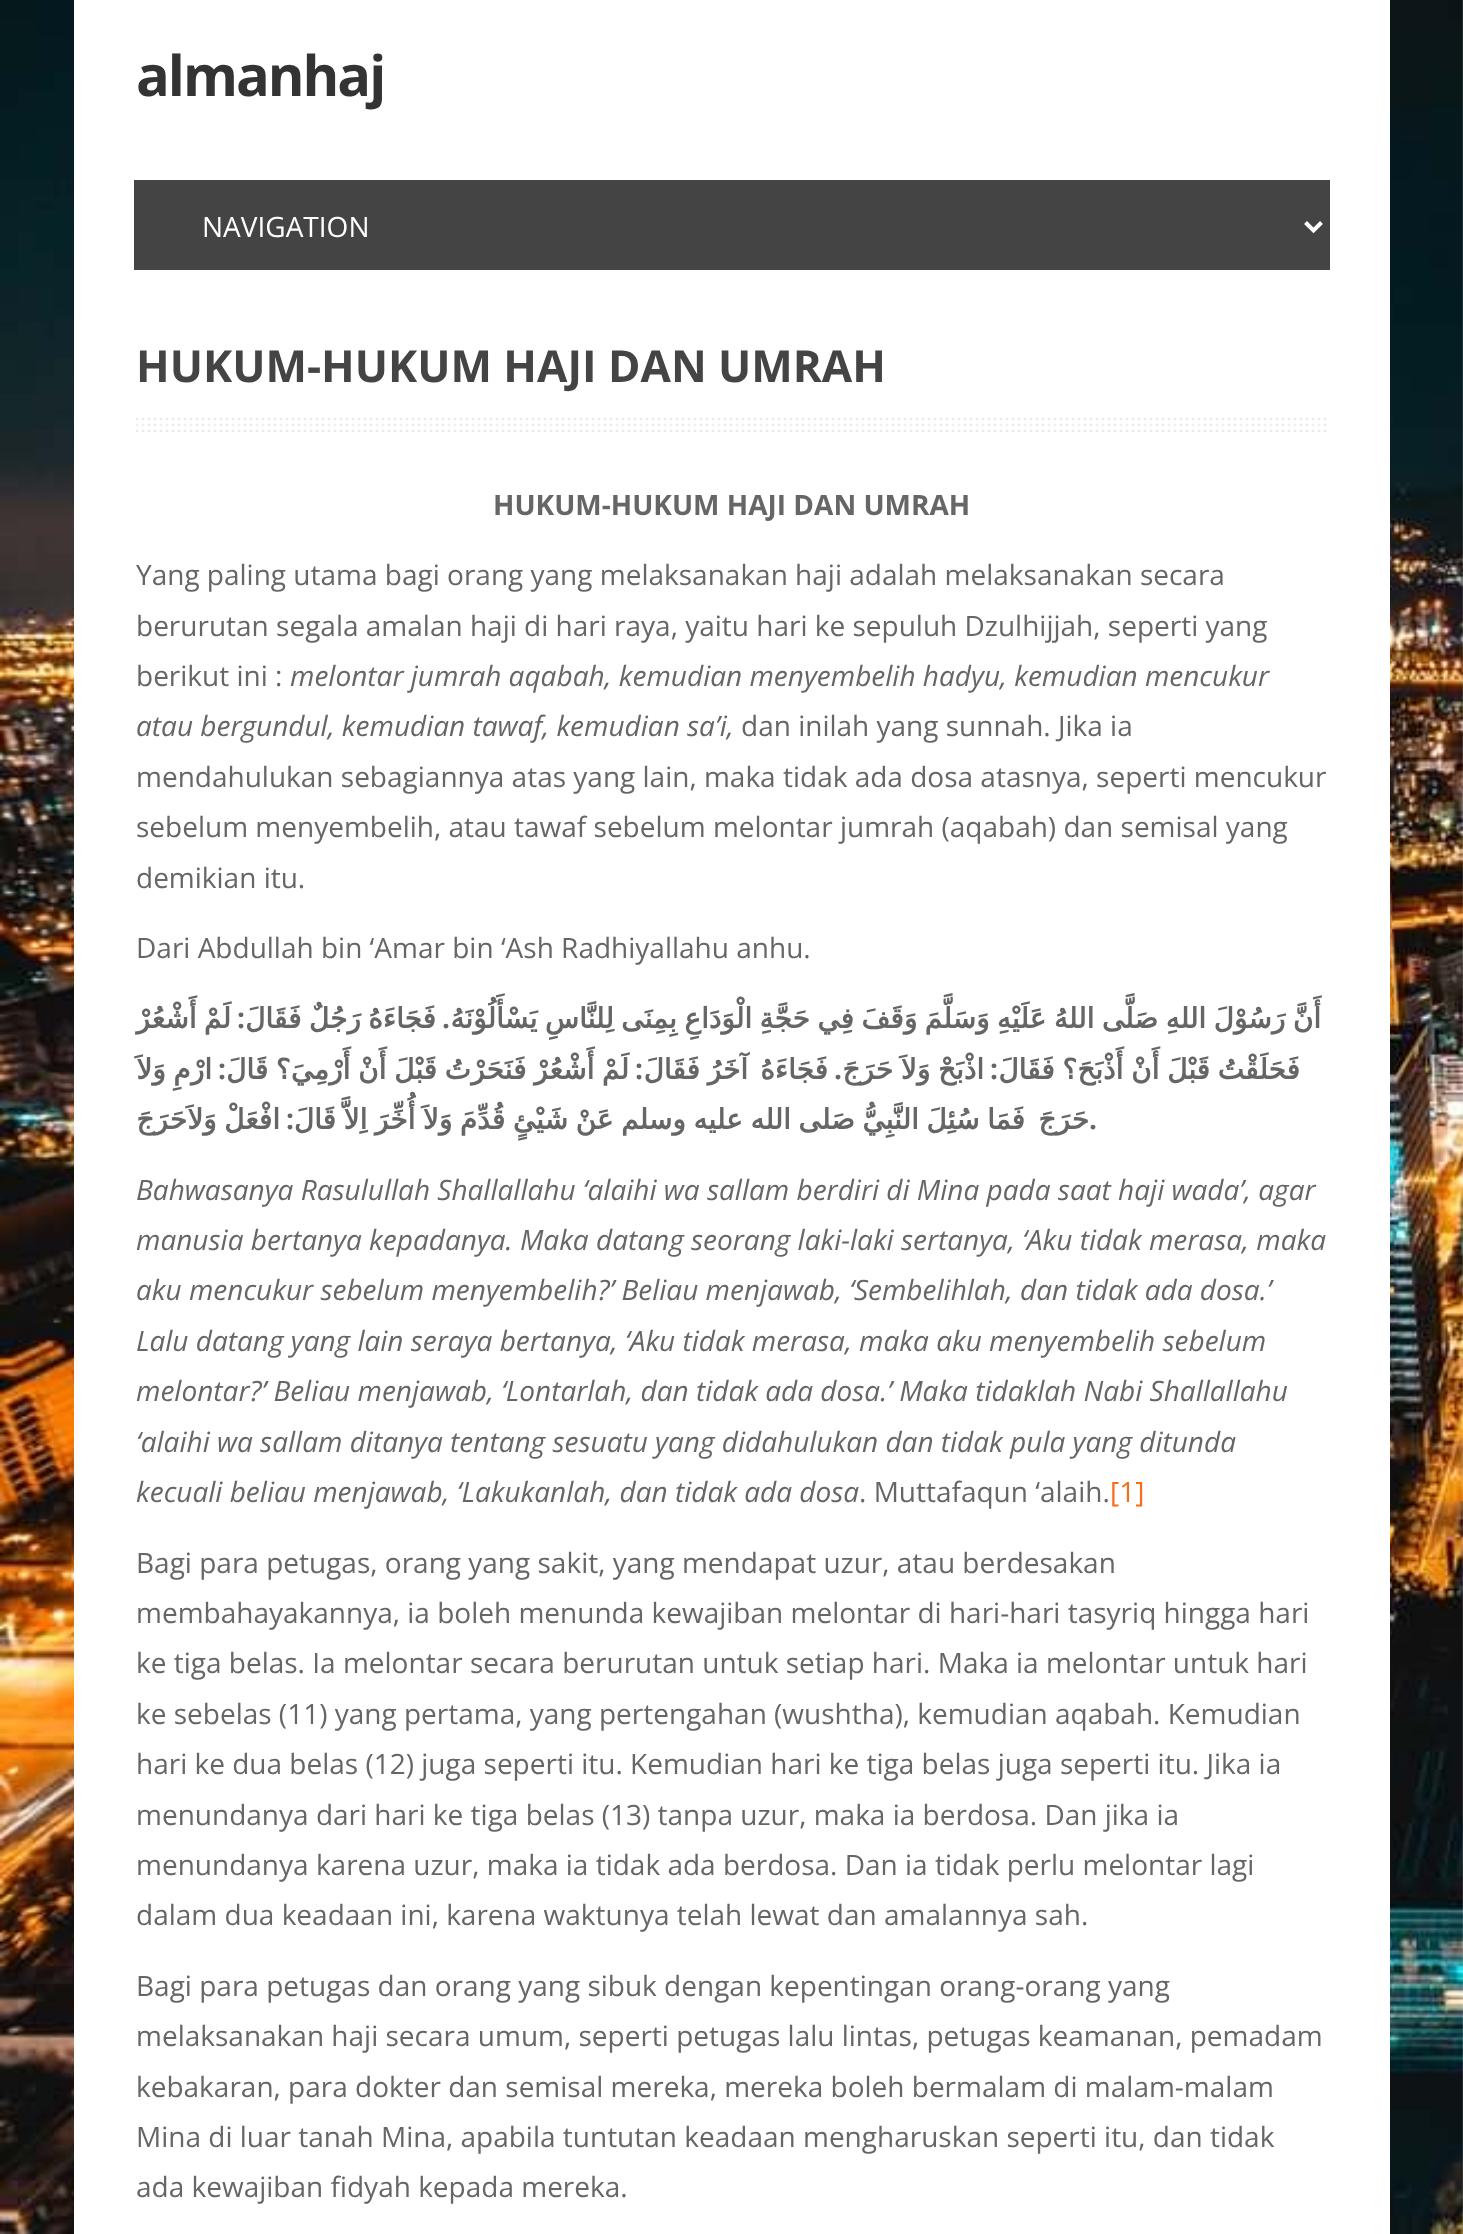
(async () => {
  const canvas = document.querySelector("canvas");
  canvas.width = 1463;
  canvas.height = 2234;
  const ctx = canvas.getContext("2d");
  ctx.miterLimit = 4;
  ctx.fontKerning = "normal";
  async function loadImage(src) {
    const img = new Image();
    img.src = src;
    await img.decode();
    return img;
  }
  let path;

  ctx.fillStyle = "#ffffff";
  ctx.fillRect(0, 0, 1463, 2234);
  ctx.drawImage(await loadImage("img/1.png"), 0, 0, 1463, 2234);
  ctx.fillRect(74, 0, 1316, 2234);
  ctx.fillStyle = "#444444";
  ctx.fillRect(134, 180, 1196, 90);
  path = new Path2D("M1305.5 222.5L1313.5 230.5L1321.5 222.5");
  ctx.strokeStyle = "#ffffff";
  ctx.lineWidth = 4;
  ctx.stroke(path);
  ctx.drawImage(await loadImage("img/2.png"), 136, 418, 1191, 14);
  ctx.letterSpacing = "-2px";
  ctx.font = "bold 56px Open Sans";
  ctx.fillStyle = "#333333";
  ctx.fillText("almanhaj", 136, 96);
  ctx.letterSpacing = "0px";
  ctx.font = "28px Open Sans";
  ctx.fillStyle = "#ffffff";
  ctx.fillText("NAVIGATION", 202, 237);
  ctx.font = "bold 44px Open Sans";
  ctx.fillStyle = "#444444";
  ctx.fillText("HUKUM-HUKUM HAJI DAN UMRAH", 136, 382);
  ctx.font = "bold 28px Open Sans";
  ctx.fillStyle = "#666666";
  ctx.fillText("HUKUM-HUKUM HAJI DAN UMRAH", 493, 515);
  ctx.font = "28px Open Sans";
  for (const [text, x, y] of [
    ["Yang paling utama bagi orang yang melaksanakan haji adalah melaksanakan secara", 136, 585],
    ["berurutan segala amalan haji di hari raya, yaitu hari ke sepuluh Dzulhijjah, seperti yang", 136, 636],
    ["berikut ini :", 136, 686],
  ]) {
    ctx.fillText(text, x, y);
  }
  ctx.font = "italic 28px Open Sans";
  ctx.fillText("melontar jumrah aqabah, kemudian menyembelih hadyu, kemudian mencukur", 290, 686);
  ctx.fillText("atau bergundul, kemudian tawaf, kemudian sa’i,", 136, 736);
  ctx.font = "28px Open Sans";
  for (const [text, x, y] of [
    ["dan inilah yang sunnah. Jika ia", 741, 736],
    ["mendahulukan sebagiannya atas yang lain, maka tidak ada dosa atasnya, seperti mencukur", 136, 787],
    ["sebelum menyembelih, atau tawaf sebelum melontar jumrah (aqabah) dan semisal yang", 136, 837],
    ["demikian itu.", 136, 888],
    ["Dari Abdullah bin ‘Amar bin ‘Ash Radhiyallahu anhu.", 136, 958],
  ]) {
    ctx.fillText(text, x, y);
  }
  ctx.wordSpacing = "-1.5px";
  ctx.direction = "rtl";
  ctx.font = "bold 28px DejaVu Sans";
  ctx.fillText("لَمْ أَشْعُرْ", 231, 1028);
  ctx.wordSpacing = "0px";
  ctx.font = "bold 28px Open Sans";
  ctx.fillText(":", 245, 1028);
  ctx.wordSpacing = "-1.5px";
  ctx.font = "bold 28px DejaVu Sans";
  ctx.fillText("فَجَاءَهُ رَجُلٌ فَقَالَ", 436, 1028);
  ctx.wordSpacing = "0px";
  ctx.font = "bold 28px Open Sans";
  ctx.fillText(".", 450, 1028);
  ctx.wordSpacing = "-1.5px";
  ctx.font = "bold 28px DejaVu Sans";
  ctx.fillText("أَنَّ رَسُوْلَ اللهِ صَلَّى اللهُ عَلَيْهِ وَسَلَّمَ وَقَفَ فِي حَجَّةِ الْوَدَاعِ بِمِنَى لِلنَّاسِ يَسْأَلُوْنَهُ", 1321, 1028);
  ctx.wordSpacing = "-1.25px";
  ctx.fillText("ارْمِ وَلاَ", 212, 1079);
  ctx.wordSpacing = "0px";
  ctx.font = "bold 28px Open Sans";
  ctx.fillText(":", 226, 1079);
  ctx.wordSpacing = "-1.25px";
  ctx.font = "bold 28px DejaVu Sans";
  ctx.fillText("لَمْ أَشْعُرْ فَنَحَرْتُ قَبْلَ أَنْ أَرْمِيَ؟ قَالَ", 629, 1079);
  ctx.wordSpacing = "0px";
  ctx.font = "bold 28px Open Sans";
  ctx.fillText(":", 643, 1079);
  ctx.wordSpacing = "-1.25px";
  ctx.font = "bold 28px DejaVu Sans";
  ctx.fillText("آخَرُ فَقَالَ", 748, 1079);
  ctx.wordSpacing = "0px";
  ctx.fillText("فَجَاءَهُ", 828, 1079);
  ctx.font = "bold 28px Open Sans";
  ctx.fillText(".", 842, 1079);
  ctx.wordSpacing = "-1.25px";
  ctx.font = "bold 28px DejaVu Sans";
  ctx.fillText("اذْبَحْ وَلاَ حَرَجَ", 984, 1079);
  ctx.wordSpacing = "0px";
  ctx.font = "bold 28px Open Sans";
  ctx.fillText(":", 998, 1079);
  ctx.wordSpacing = "-1.25px";
  ctx.font = "bold 28px DejaVu Sans";
  ctx.fillText("فَحَلَقْتُ قَبْلَ أَنْ أَذْبَحَ؟ فَقَالَ", 1300, 1079);
  ctx.wordSpacing = "-1.4px";
  ctx.fillText("افْعَلْ وَلاَحَرَجَ", 280, 1129);
  ctx.wordSpacing = "0px";
  ctx.font = "bold 28px Open Sans";
  ctx.fillText(":", 294, 1129);
  ctx.wordSpacing = "-1.4px";
  ctx.font = "bold 28px DejaVu Sans";
  ctx.fillText("فَمَا سُئِلَ النَّبِيُّ صَلى الله عليه وسلم عَنْ شَيْئٍ قُدِّمَ وَلاَ أُخِّرَ اِلاَّ قَالَ", 1025, 1129);
  ctx.wordSpacing = "0px";
  ctx.fillText("حَرَجَ", 1089, 1129);
  ctx.direction = "ltr";
  ctx.font = "bold 28px Open Sans";
  ctx.fillText(".", 1089, 1129);
  ctx.font = "italic 28px Open Sans";
  for (const [text, x, y] of [
    ["Bahwasanya Rasulullah Shallallahu ‘alaihi wa sallam berdiri di Mina pada saat haji wada’, agar", 136, 1200],
    ["manusia bertanya kepadanya. Maka datang seorang laki-laki sertanya, ‘Aku tidak merasa, maka", 136, 1250],
    ["aku mencukur sebelum menyembelih?’ Beliau menjawab, ‘Sembelihlah, dan tidak ada dosa.’", 136, 1300],
    ["Lalu datang yang lain seraya bertanya, ‘Aku tidak merasa, maka aku menyembelih sebelum", 136, 1351],
    ["melontar?’ Beliau menjawab, ‘Lontarlah, dan tidak ada dosa.’ Maka tidaklah Nabi Shallallahu", 136, 1401],
    ["‘alaihi wa sallam ditanya tentang sesuatu yang didahulukan dan tidak pula yang ditunda", 136, 1452],
    ["kecuali beliau menjawab, ‘Lakukanlah, dan tidak ada dosa", 136, 1502],
  ]) {
    ctx.fillText(text, x, y);
  }
  ctx.font = "28px Open Sans";
  ctx.fillText(". Muttafaqun ‘alaih.", 859, 1502);
  ctx.fillStyle = "#f86d18";
  ctx.fillText("[1]", 1110, 1502);
  ctx.fillStyle = "#666666";
  for (const [text, x, y] of [
    ["Bagi para petugas, orang yang sakit, yang mendapat uzur, atau berdesakan", 136, 1573],
    ["membahayakannya, ia boleh menunda kewajiban melontar di hari-hari tasyriq hingga hari", 136, 1623],
    ["ke tiga belas. Ia melontar secara berurutan untuk setiap hari. Maka ia melontar untuk hari", 136, 1673],
    ["ke sebelas (11) yang pertama, yang pertengahan (wushtha), kemudian aqabah. Kemudian", 136, 1724],
    ["hari ke dua belas (12) juga seperti itu. Kemudian hari ke tiga belas juga seperti itu. Jika ia", 136, 1774],
    ["menundanya dari hari ke tiga belas (13) tanpa uzur, maka ia berdosa. Dan jika ia", 136, 1825],
    ["menundanya karena uzur, maka ia tidak ada berdosa. Dan ia tidak perlu melontar lagi", 136, 1875],
    ["dalam dua keadaan ini, karena waktunya telah lewat dan amalannya sah.", 136, 1925],
    ["Bagi para petugas dan orang yang sibuk dengan kepentingan orang-orang yang", 136, 1996],
    ["melaksanakan haji secara umum, seperti petugas lalu lintas, petugas keamanan, pemadam", 136, 2046],
    ["kebakaran, para dokter dan semisal mereka, mereka boleh bermalam di malam-malam", 136, 2097],
    ["Mina di luar tanah Mina, apabila tuntutan keadaan mengharuskan seperti itu, dan tidak", 136, 2147],
    ["ada kewajiban fidyah kepada mereka.", 136, 2197],
  ]) {
    ctx.fillText(text, x, y);
  }
})();
